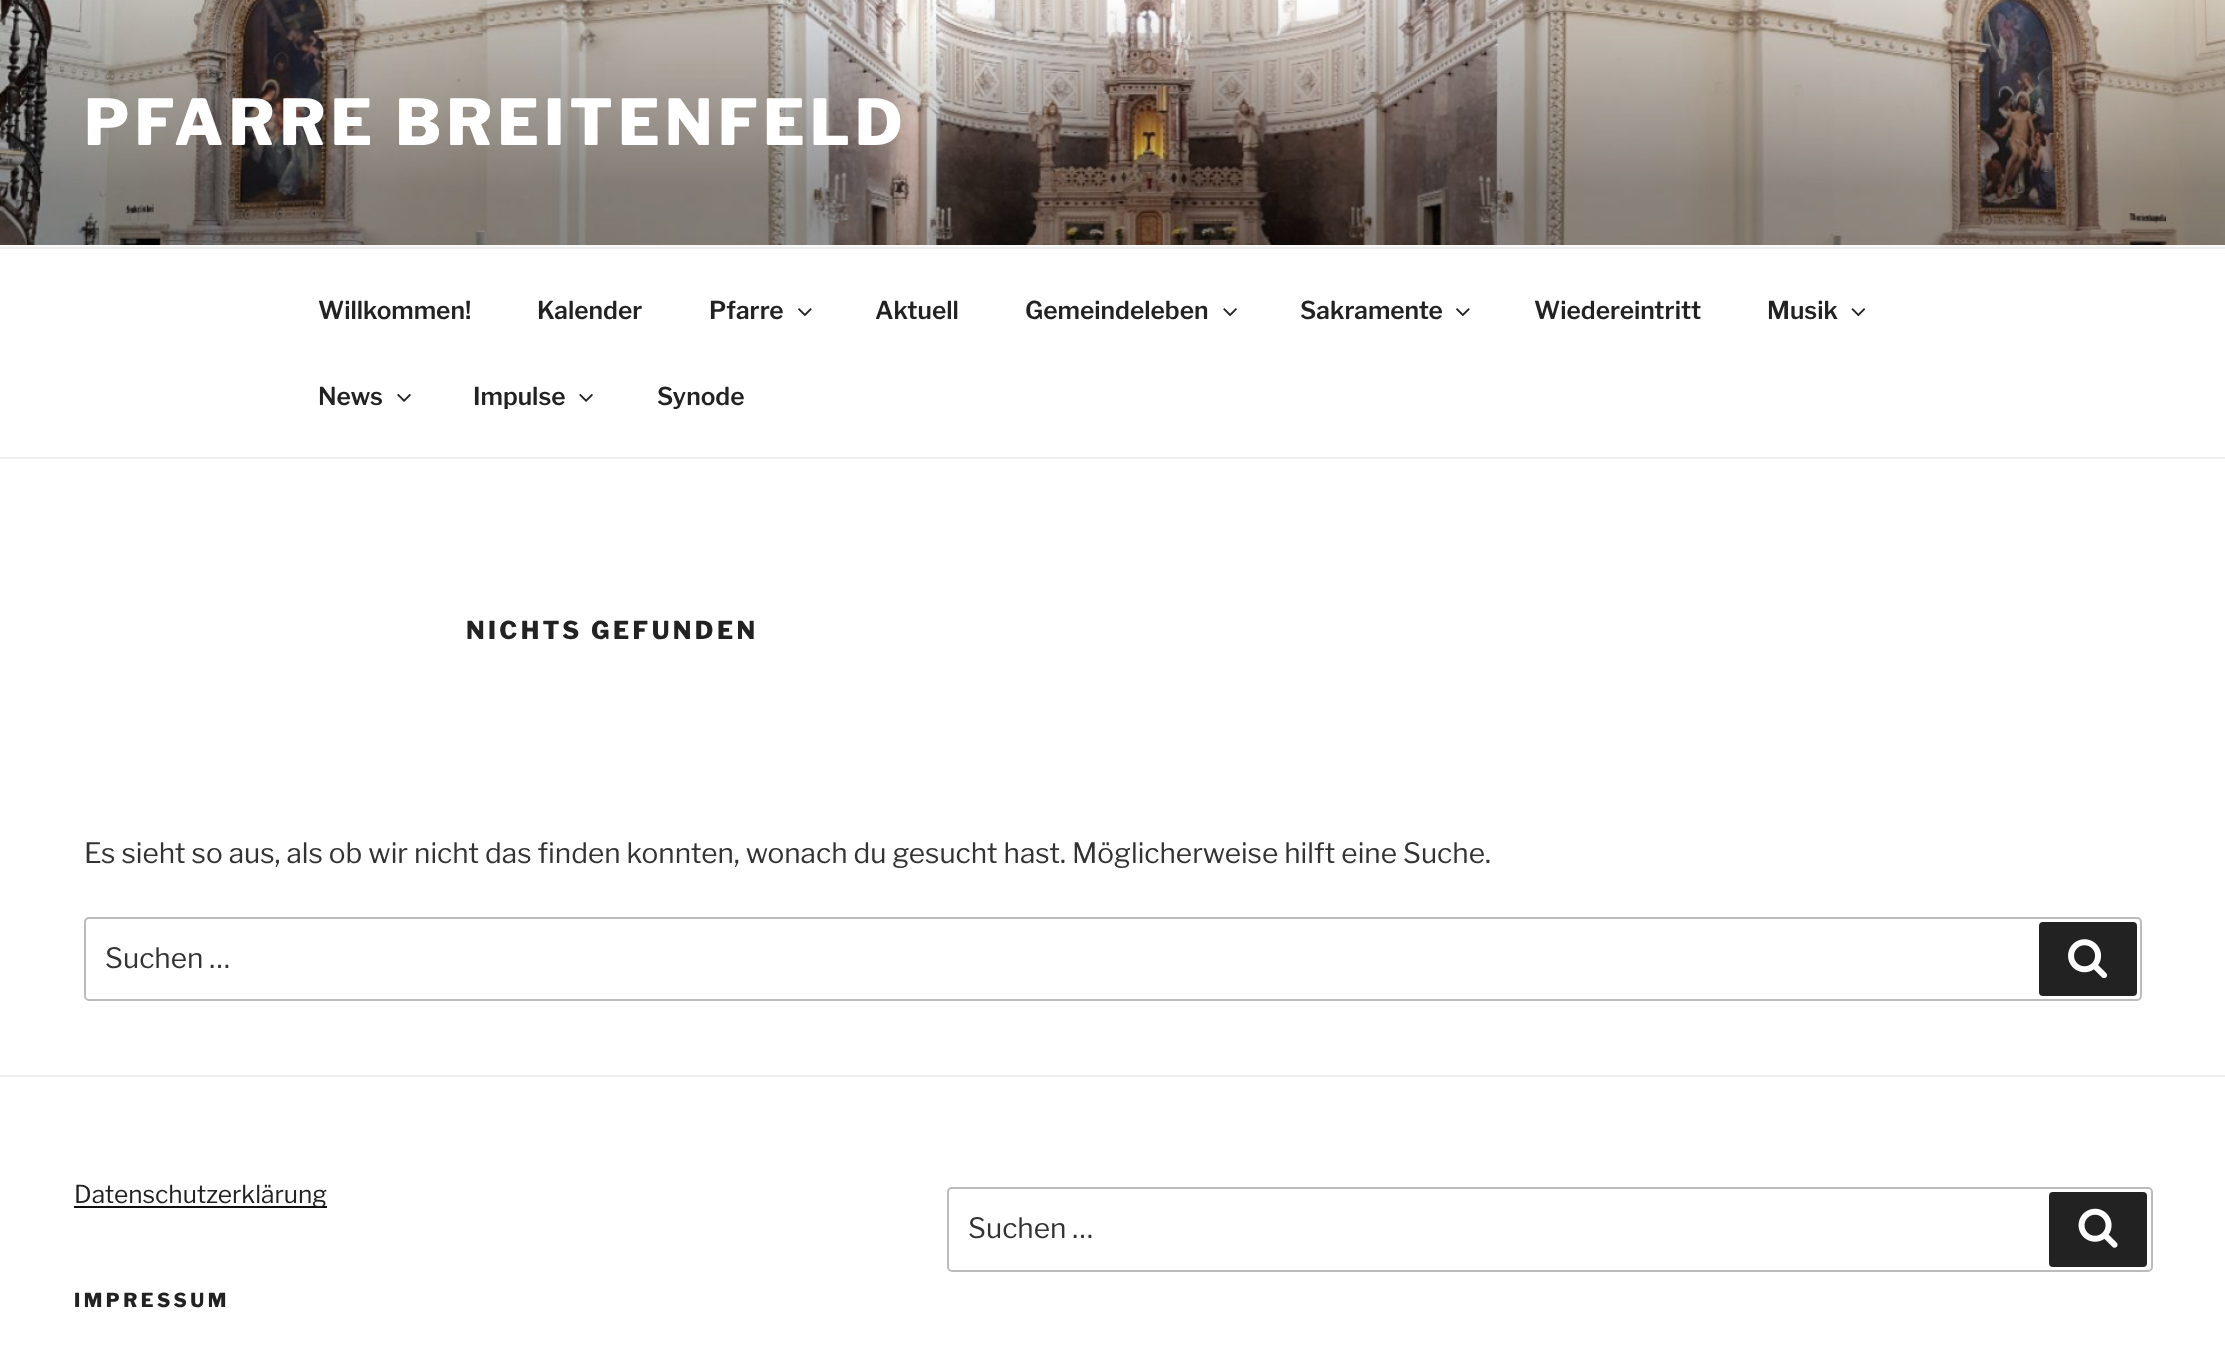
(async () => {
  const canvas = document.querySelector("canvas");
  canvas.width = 2225;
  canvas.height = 1350;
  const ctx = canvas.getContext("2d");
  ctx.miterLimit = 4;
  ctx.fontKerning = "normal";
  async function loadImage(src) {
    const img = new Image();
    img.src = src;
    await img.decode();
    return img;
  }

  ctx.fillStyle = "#ffffff";
  ctx.fillRect(0, 0, 2225, 1350);
  ctx.fillStyle = "#fafafa";
  ctx.fillRect(0, 245, 2225, 2);
  ctx.drawImage(await loadImage("img/1.png"), 0, 0, 2225, 245);
  ctx.fillStyle = "#eeeeee";
  ctx.fillRect(0, 247, 2225, 2);
  ctx.fillRect(0, 457, 2225, 2);
  ctx.drawImage(await loadImage("img/2.png"), 798, 308, 14, 9);
  ctx.drawImage(await loadImage("img/3.png"), 1223, 308, 14, 9);
  ctx.drawImage(await loadImage("img/2.png"), 1456, 308, 14, 9);
  ctx.drawImage(await loadImage("img/4.png"), 1851, 308, 15, 9);
  ctx.drawImage(await loadImage("img/5.png"), 397, 394, 14, 8);
  ctx.drawImage(await loadImage("img/5.png"), 579, 394, 14, 8);
  ctx.beginPath();
  ctx.roundRect(85, 918, 2056, 82, 4);
  ctx.strokeStyle = "#bbbbbb";
  ctx.lineWidth = 2;
  ctx.stroke();
  ctx.fillStyle = "#222222";
  ctx.beginPath();
  ctx.roundRect(2039, 922, 98, 74, 4);
  ctx.fill();
  ctx.drawImage(await loadImage("img/6.png"), 2068, 939, 39, 39);
  ctx.fillStyle = "#eeeeee";
  ctx.fillRect(0, 1075, 2225, 2);
  ctx.fillStyle = "#0f0f0f";
  ctx.fillRect(74, 1206, 253, 2);
  ctx.beginPath();
  ctx.roundRect(948, 1188, 1204, 83, 4);
  ctx.stroke();
  ctx.fillStyle = "#222222";
  ctx.beginPath();
  ctx.roundRect(2049, 1192, 98, 75, 4);
  ctx.fill();
  ctx.drawImage(await loadImage("img/7.png"), 2078, 1208, 40, 40);
  ctx.letterSpacing = "5px";
  ctx.font = "800 63px Libre Franklin";
  ctx.fillStyle = "#ffffff";
  ctx.fillText("PFARRE BREITENFELD", 84, 145);
  ctx.letterSpacing = "0px";
  ctx.font = "600 24.5px Libre Franklin";
  ctx.fillStyle = "#222222";
  for (const [text, x, y] of [
    ["Willkommen!", 318, 319],
    ["Kalender", 537, 319],
    ["Pfarre", 709, 319],
    ["Aktuell", 875, 319],
    ["Gemeindeleben", 1025, 319],
    ["Sakramente", 1300, 319],
    ["Wiedereintritt", 1534, 319],
    ["Musik", 1767, 319],
    ["News", 318, 405],
    ["Impulse", 473, 405],
    ["Synode", 657, 405],
  ]) {
    ctx.fillText(text, x, y);
  }
  ctx.letterSpacing = "3.4px";
  ctx.font = "800 24.5px Libre Franklin";
  ctx.fillText("NICHTS GEFUNDEN", 466, 639);
  ctx.letterSpacing = "0px";
  ctx.font = "28px Libre Franklin";
  ctx.fillStyle = "#333333";
  ctx.fillText("Es sieht so aus, als ob wir nicht das finden konnten, wonach du gesucht hast. Möglicherweise hilft eine Suche.", 84, 863);
  ctx.fillText("Suchen …", 105, 968);
  ctx.font = "24.5px Libre Franklin";
  ctx.fillStyle = "#222222";
  ctx.fillText("Datenschutzerklärung", 74, 1203);
  ctx.letterSpacing = "3.5px";
  ctx.font = "800 19.25px Libre Franklin";
  ctx.fillText("IMPRESSUM", 74, 1307);
  ctx.letterSpacing = "0px";
  ctx.font = "28px Libre Franklin";
  ctx.fillStyle = "#333333";
  ctx.fillText("Suchen …", 968, 1238);
})();
